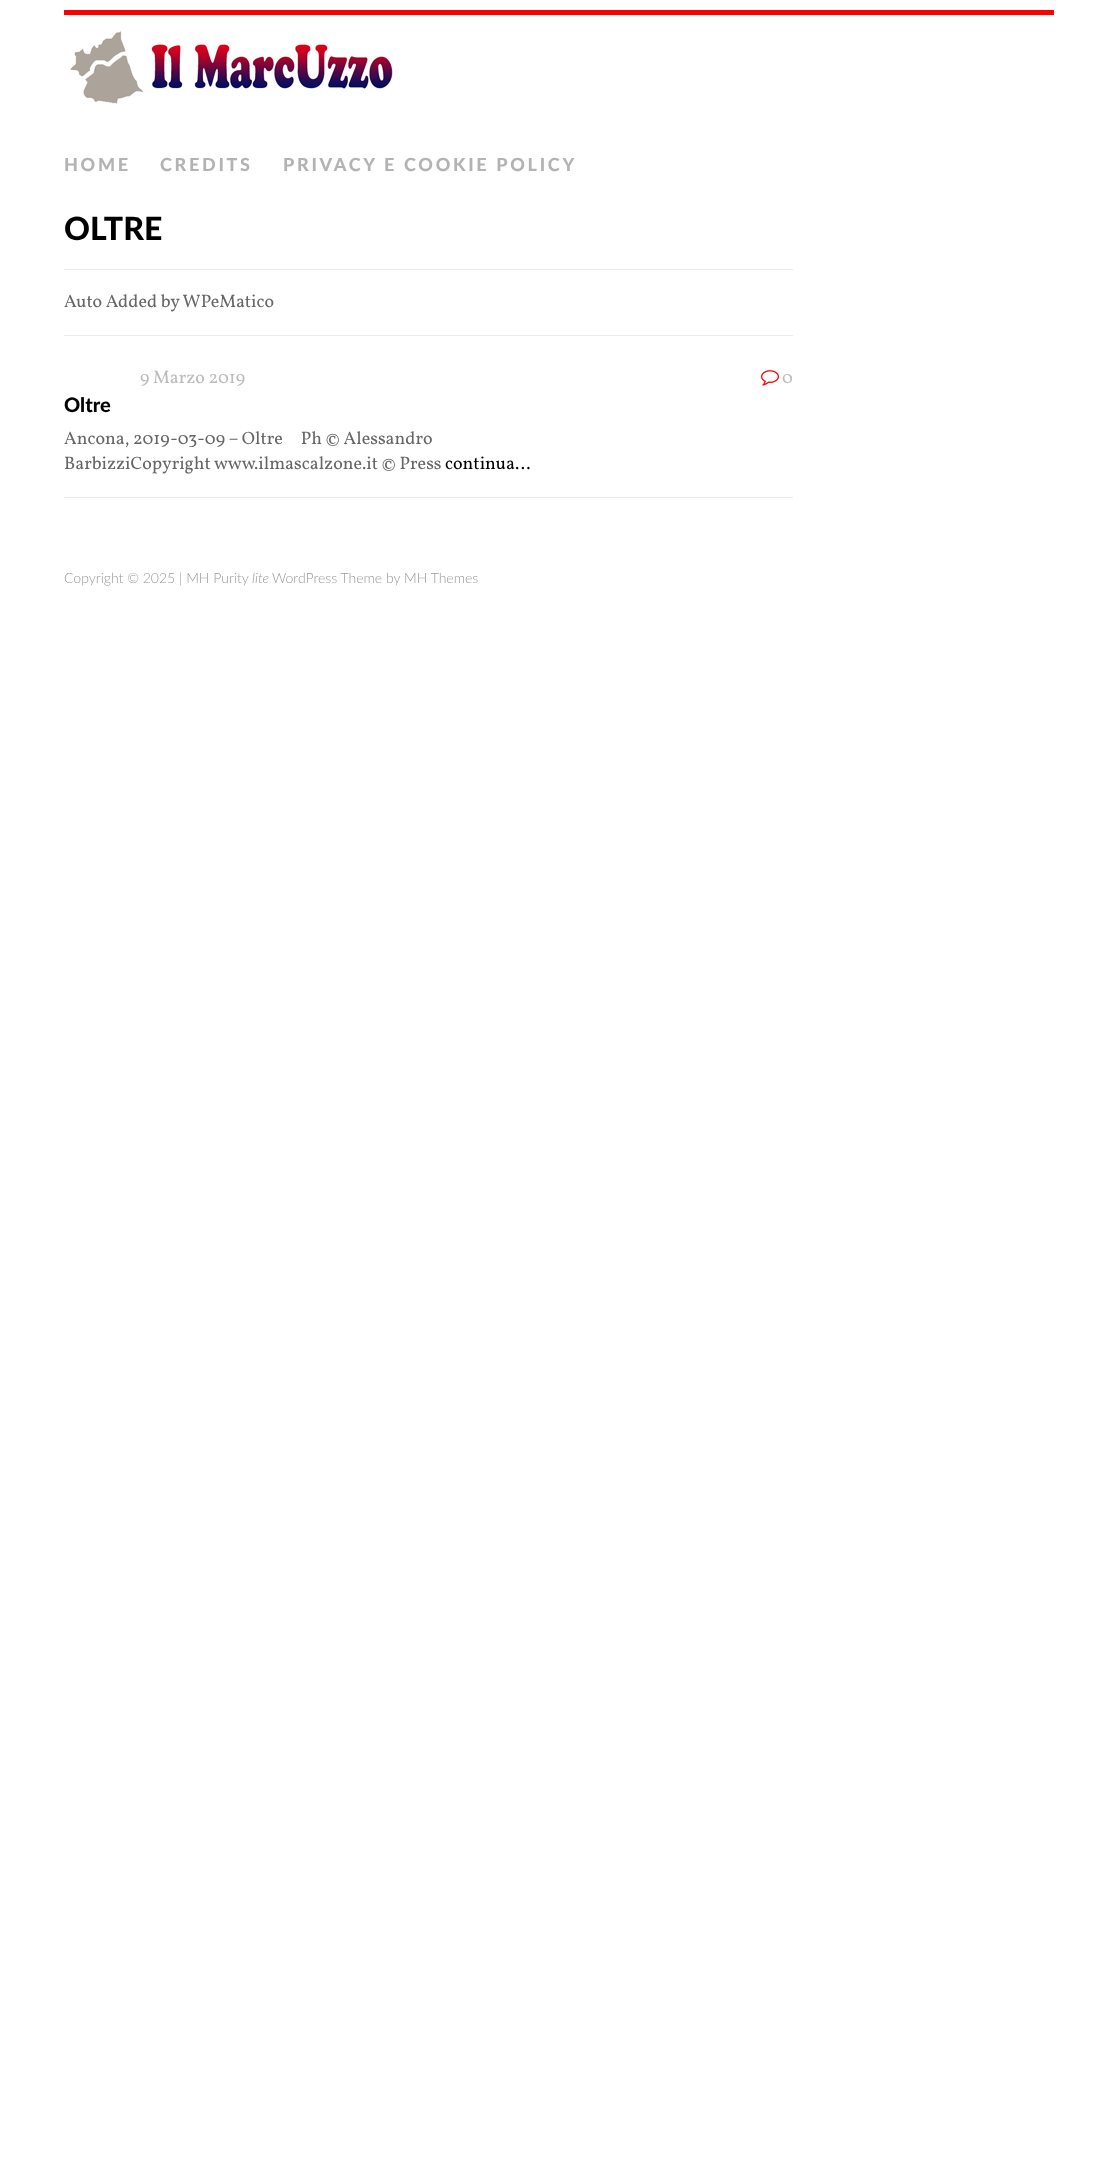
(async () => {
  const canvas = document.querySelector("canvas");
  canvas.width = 1117;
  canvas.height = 2165;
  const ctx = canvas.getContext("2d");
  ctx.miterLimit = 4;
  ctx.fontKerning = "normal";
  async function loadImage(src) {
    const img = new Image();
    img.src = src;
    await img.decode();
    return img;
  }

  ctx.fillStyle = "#ffffff";
  ctx.fillRect(0, 0, 1117, 2165);
  ctx.fillStyle = "#ff0000";
  ctx.fillRect(64, 10, 990, 5);
  ctx.drawImage(await loadImage("img/1.png"), 70, 31, 323, 73);
  for (const [x, y, w, h, color] of [
    [64, 269, 729, 1, "#ebebeb"],
    [64, 335, 729, 1, "#ebebeb"],
    [64, 497, 729, 1, "#ebebeb"],
  ]) {
    ctx.fillStyle = color;
    ctx.fillRect(x, y, w, h);
  }
  ctx.drawImage(await loadImage("img/2.png"), 761, 370, 18, 16);
  ctx.letterSpacing = "2.7px";
  ctx.font = "900 18px Lato";
  ctx.fillStyle = "#b3b3b3";
  for (const [text, x, y] of [
    ["HOME", 64, 171],
    ["CREDITS", 160, 171],
    ["PRIVACY E COOKIE POLICY", 283, 171],
  ]) {
    ctx.fillText(text, x, y);
  }
  ctx.letterSpacing = "0px";
  ctx.font = "900 32px Lato";
  ctx.fillStyle = "#000000";
  ctx.fillText("OLTRE", 64, 240);
  ctx.font = "18px Vollkorn";
  ctx.fillStyle = "#666666";
  ctx.fillText("Auto Added by WPeMatico", 64, 307);
  ctx.fillStyle = "#bbbbbb";
  ctx.fillText("9 Marzo 2019", 140, 383);
  ctx.fillText("0", 782, 383);
  ctx.font = "900 20px Lato";
  ctx.fillStyle = "#000000";
  ctx.fillText("Oltre", 64, 412);
  ctx.font = "18px Vollkorn";
  ctx.fillStyle = "#666666";
  ctx.fillText("Ancona, 2019-03-09 – Oltre     Ph © Alessandro", 64, 444);
  ctx.fillText("BarbizziCopyright www.ilmascalzone.it © Press", 64, 469);
  ctx.fillStyle = "#000000";
  ctx.fillText("continua...", 445, 469);
  ctx.font = "300 14px Lato";
  ctx.fillStyle = "#999999";
  ctx.fillText("Copyright © 2025 | MH Purity", 64, 583);
  ctx.font = "italic 300 14px Lato";
  ctx.fillText("lite", 252, 583);
  ctx.font = "300 14px Lato";
  ctx.fillText("WordPress Theme by MH Themes", 272, 583);
})();
